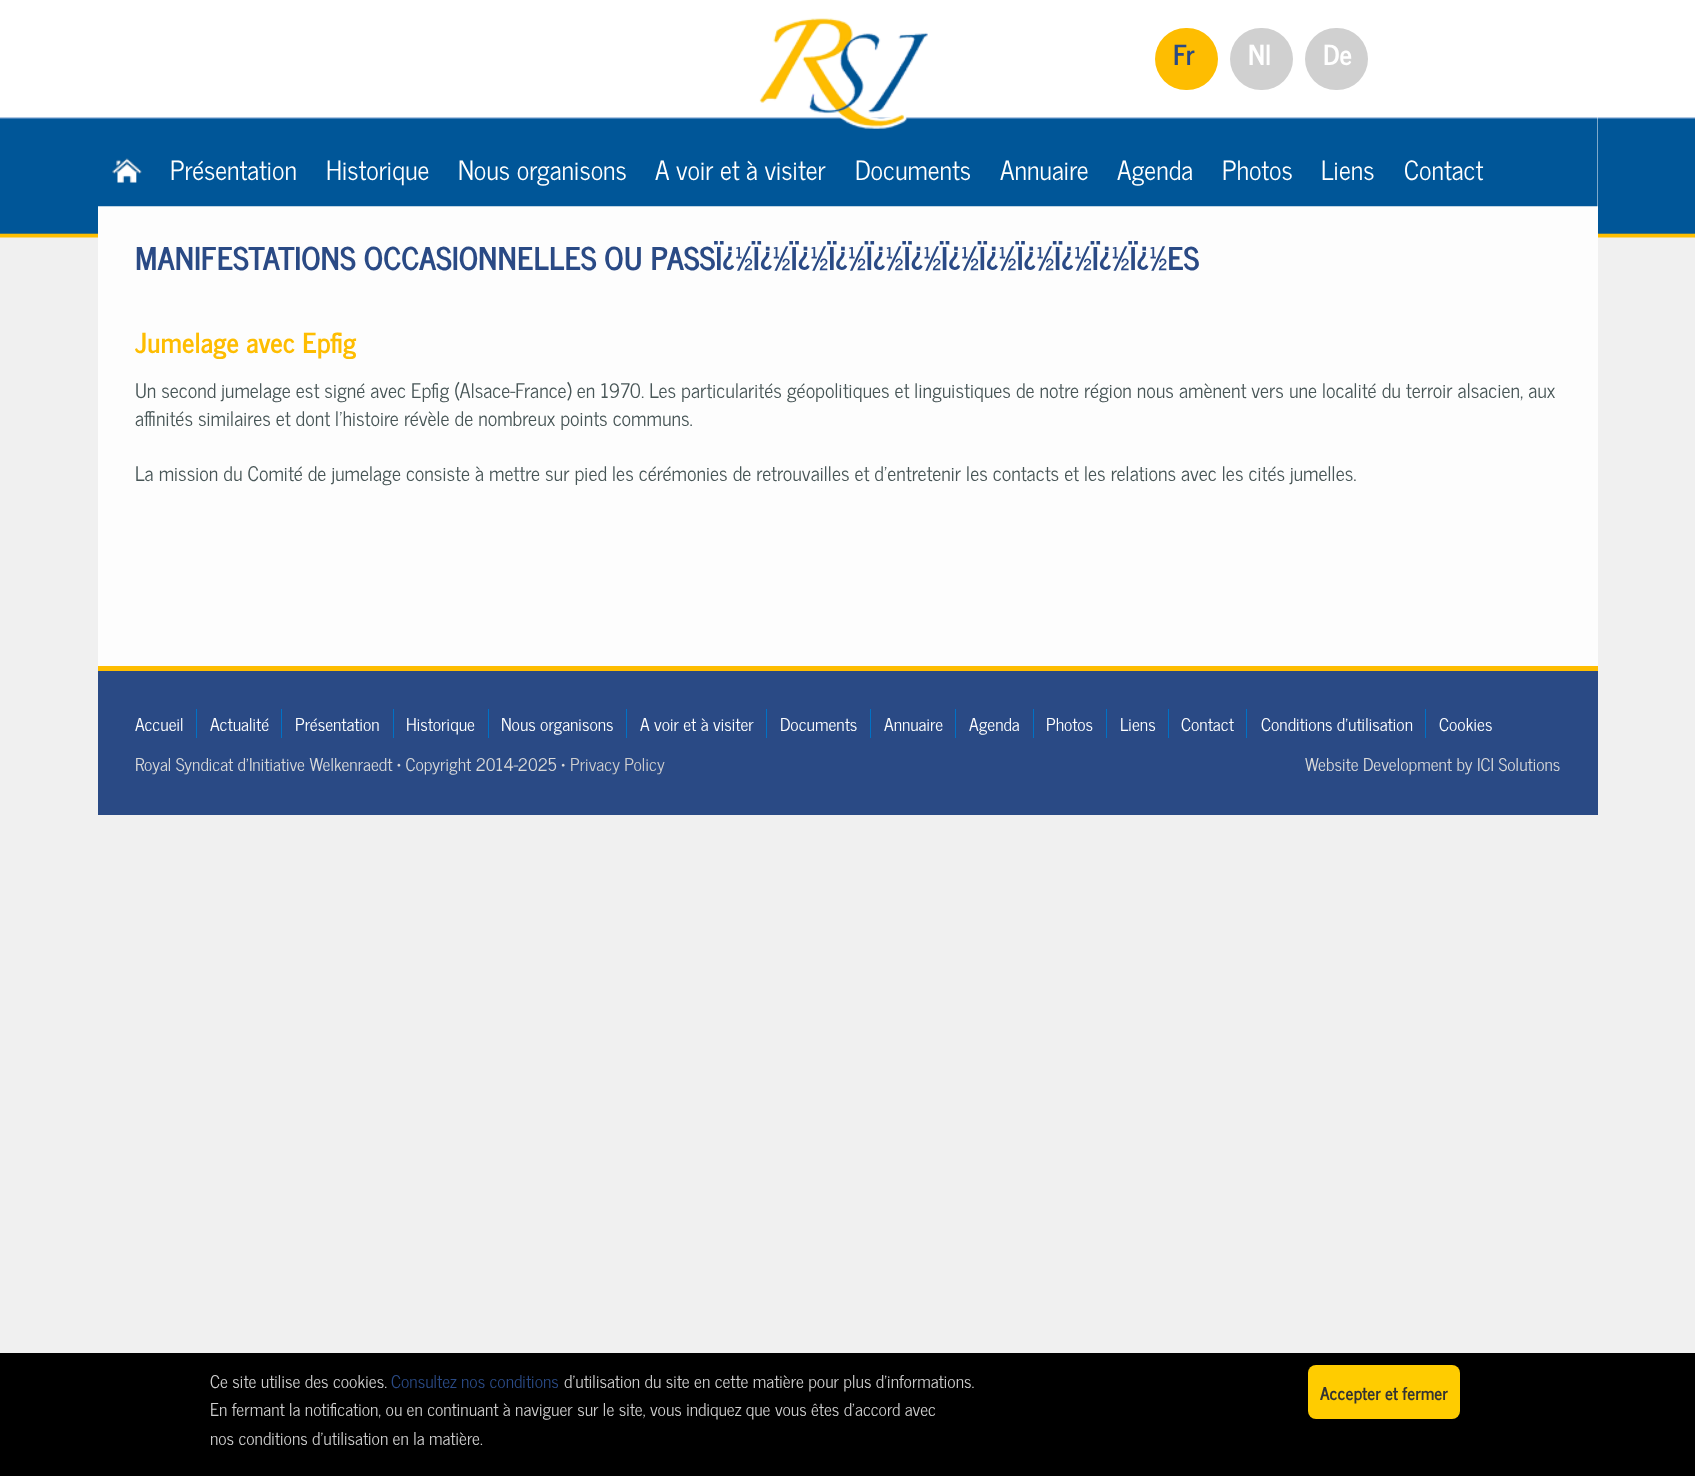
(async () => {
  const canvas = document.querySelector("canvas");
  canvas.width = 1695;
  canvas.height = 1476;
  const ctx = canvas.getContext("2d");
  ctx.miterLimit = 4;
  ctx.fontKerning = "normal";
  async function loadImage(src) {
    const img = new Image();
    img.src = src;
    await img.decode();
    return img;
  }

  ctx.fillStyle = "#f0f0f0";
  ctx.fillRect(0, 0, 1695, 1476);
  ctx.drawImage(await loadImage("img/1.png"), 0, 0, 1695, 238);
  ctx.fillStyle = "#fdfdfd";
  ctx.fillRect(98, 117, 1500, 549);
  ctx.drawImage(await loadImage("img/2.png"), 98, 117, 1500, 90);
  ctx.drawImage(await loadImage("img/3.png"), 759, 18, 169, 111);
  ctx.fillStyle = "#febd01";
  ctx.beginPath();
  ctx.roundRect(1155, 28, 63, 62, 31);
  ctx.fill();
  ctx.fillStyle = "#d0d0d0";
  ctx.beginPath();
  ctx.roundRect(1230, 28, 63, 62, 31);
  ctx.fill();
  ctx.beginPath();
  ctx.roundRect(1305, 28, 63, 62, 31);
  ctx.fill();
  ctx.drawImage(await loadImage("img/4.png"), 112, 158, 30, 25);
  for (const [x, y, w, h, color] of [
    [98, 671, 1500, 144, "#2a4a85"],
    [98, 666, 1500, 5, "#febd01"],
    [196, 709, 1, 29, "#0072c6"],
    [281, 709, 1, 29, "#0072c6"],
    [393, 709, 1, 29, "#0072c6"],
    [488, 709, 1, 29, "#0072c6"],
    [626, 709, 1, 29, "#0072c6"],
    [766, 709, 1, 29, "#0072c6"],
    [870, 709, 1, 29, "#0072c6"],
    [955, 709, 1, 29, "#0072c6"],
    [1033, 709, 1, 29, "#0072c6"],
    [1106, 709, 1, 29, "#0072c6"],
    [1168, 709, 1, 29, "#0072c6"],
    [1246, 709, 1, 29, "#0072c6"],
    [1425, 709, 1, 29, "#0072c6"],
    [0, 1353, 1695, 123, "#000000"],
  ]) {
    ctx.fillStyle = color;
    ctx.fillRect(x, y, w, h);
  }
  ctx.fillStyle = "#ffcc00";
  ctx.beginPath();
  ctx.roundRect(1308, 1365, 152, 54, 8);
  ctx.fill();
  ctx.font = "bold 27.5px News Cycle";
  ctx.fillStyle = "#2a4a85";
  ctx.fillText("Fr", 1173, 65);
  ctx.fillStyle = "#ffffff";
  ctx.fillText("Nl", 1248, 65);
  ctx.fillText("De", 1323, 65);
  ctx.font = "26.25px News Cycle";
  for (const [text, x, y] of [
    ["Présentation", 170, 180],
    ["Historique", 326, 180],
    ["Nous organisons", 458, 180],
    ["A voir et à visiter", 655, 180],
    ["Documents", 855, 180],
    ["Annuaire", 1000, 180],
    ["Agenda", 1117, 180],
    ["Photos", 1222, 180],
    ["Liens", 1321, 180],
    ["Contact", 1404, 180],
  ]) {
    ctx.fillText(text, x, y);
  }
  ctx.font = "bold 31.25px News Cycle";
  ctx.fillStyle = "#2a4a85";
  ctx.fillText("MANIFESTATIONS OCCASIONNELLES OU PASSÏ¿½Ï¿½Ï¿½Ï¿½Ï¿½Ï¿½Ï¿½Ï¿½Ï¿½Ï¿½Ï¿½Ï¿½ES", 135, 270);
  ctx.font = "bold 27.5px News Cycle";
  ctx.fillStyle = "#febd01";
  ctx.fillText("Jumelage avec Epfig", 135, 353);
  ctx.font = "20px News Cycle";
  ctx.fillStyle = "#485657";
  for (const [text, x, y] of [
    ["Un second jumelage est signé avec Epfig (Alsace-France) en 1970. Les particularités géopolitiques et linguistiques de notre région nous amènent vers une localité du terroir alsacien, aux", 135, 398],
    ["affinités similaires et dont l’histoire révèle de nombreux points communs.", 135, 426],
    ["La mission du Comité de jumelage consiste à mettre sur pied les cérémonies de retrouvailles et d’entretenir les contacts et les relations avec les cités jumelles.", 135, 481],
  ]) {
    ctx.fillText(text, x, y);
  }
  ctx.font = "17.5px News Cycle";
  ctx.fillStyle = "#ffffff";
  for (const [text, x, y] of [
    ["Accueil", 135, 731],
    ["Actualité", 210, 731],
    ["Présentation", 295, 731],
    ["Historique", 406, 731],
    ["Nous organisons", 501, 731],
    ["A voir et à visiter", 640, 731],
    ["Documents", 780, 731],
    ["Annuaire", 884, 731],
    ["Agenda", 969, 731],
    ["Photos", 1046, 731],
    ["Liens", 1120, 731],
    ["Contact", 1181, 731],
    ["Conditions d'utilisation", 1261, 731],
    ["Cookies", 1439, 731],
  ]) {
    ctx.fillText(text, x, y);
  }
  ctx.fillStyle = "#dadada";
  ctx.fillText("Royal Syndicat d'Initiative Welkenraedt • Copyright 2014-2025 •", 135, 771);
  ctx.fillStyle = "#cecece";
  ctx.fillText("Privacy Policy", 570, 771);
  ctx.fillStyle = "#dadada";
  ctx.fillText("Website Development by ICI Solutions", 1305, 771);
  ctx.fillStyle = "#cecece";
  ctx.fillText("Ce site utilise des cookies.", 210, 1388);
  ctx.fillStyle = "#2a4a85";
  ctx.fillText("Consultez nos conditions", 391, 1388);
  ctx.fillStyle = "#cecece";
  for (const [text, x, y] of [
    ["d'utilisation du site en cette matière pour plus d’informations.", 564, 1388],
    ["En fermant la notification, ou en continuant à naviguer sur le site, vous indiquez que vous êtes d’accord avec", 210, 1416],
    ["nos conditions d'utilisation en la matière.", 210, 1445],
  ]) {
    ctx.fillText(text, x, y);
  }
  ctx.font = "bold 17.5px News Cycle";
  ctx.fillStyle = "#333333";
  ctx.fillText("Accepter et fermer", 1320, 1400);
})();
